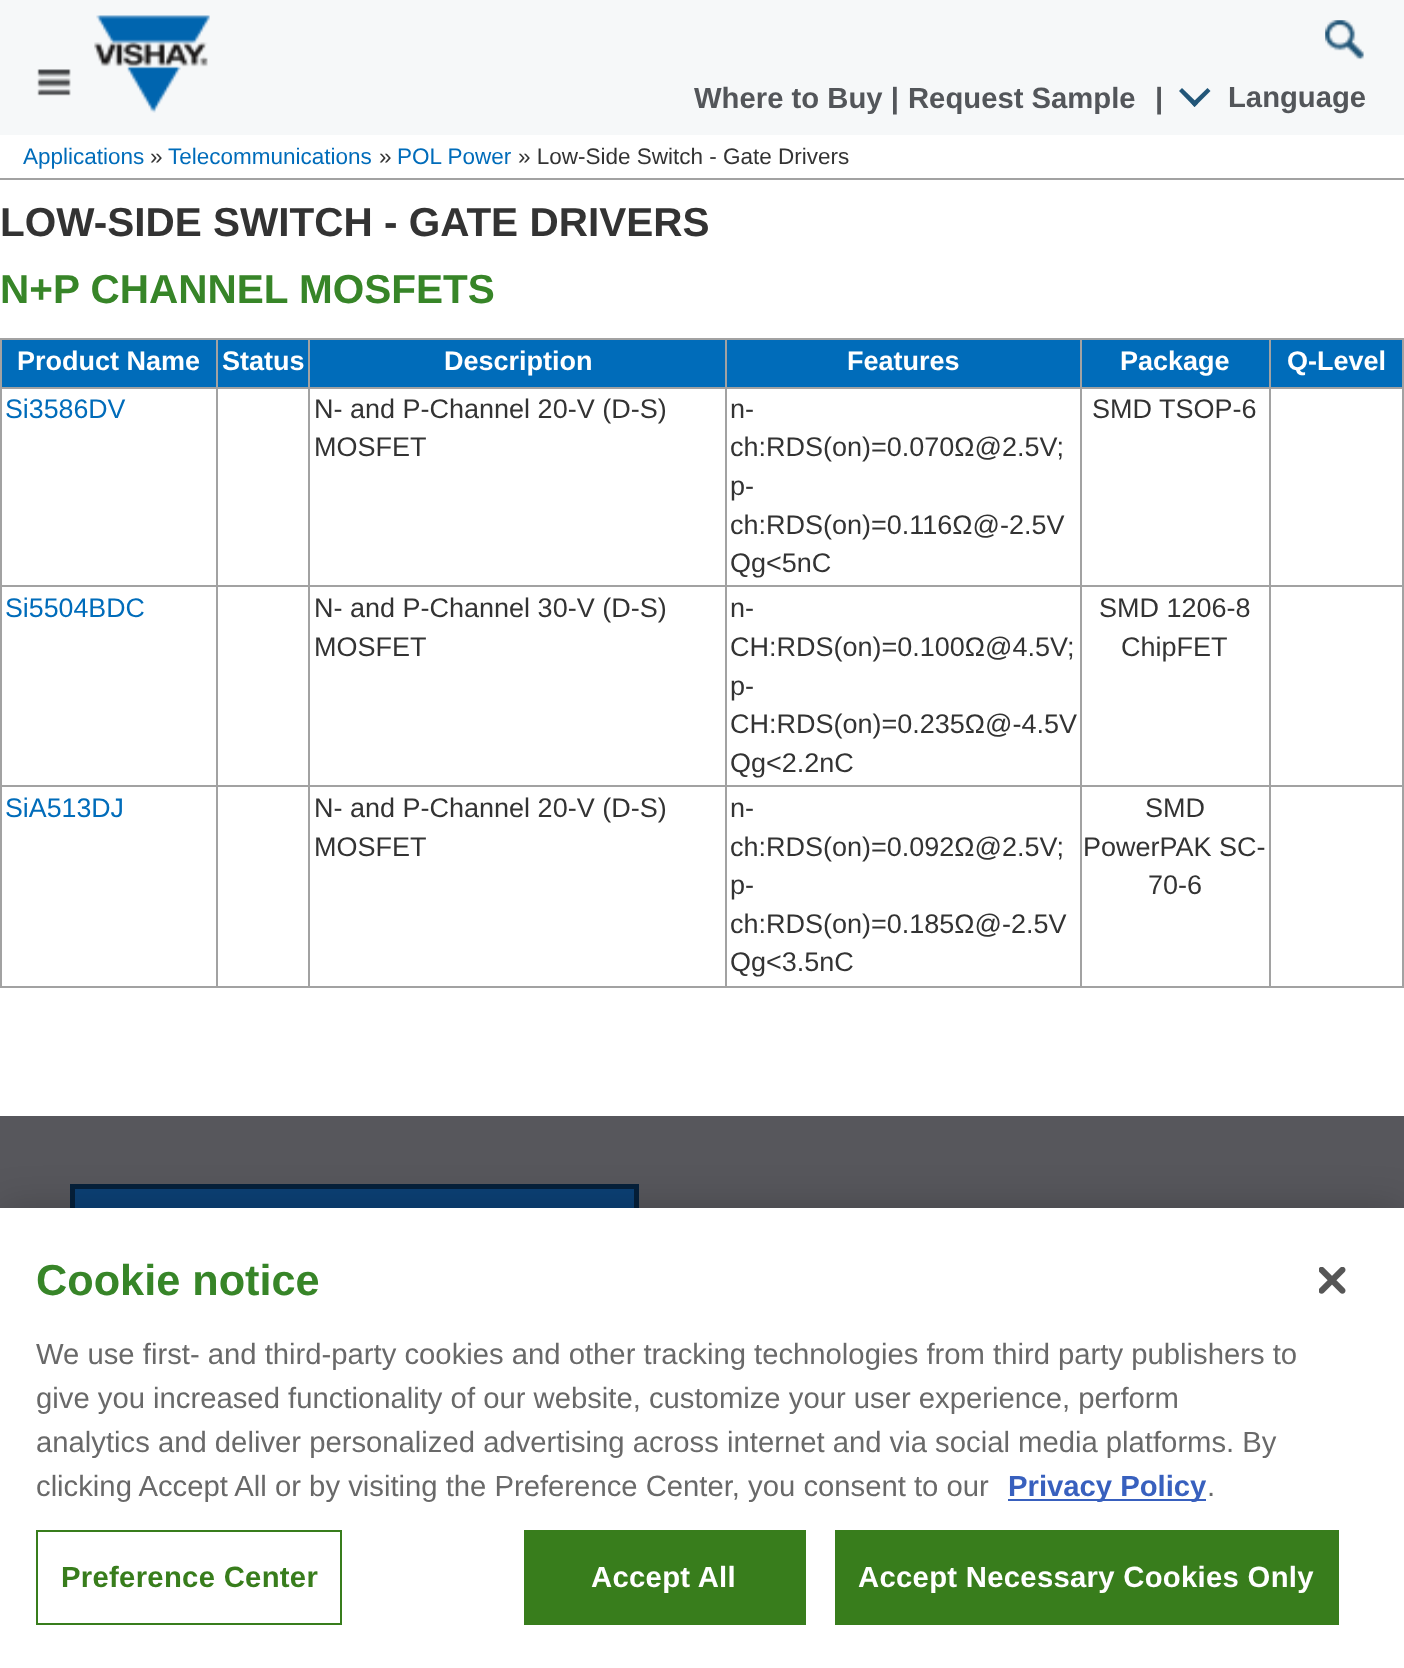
(async () => {
  const canvas = document.querySelector("canvas");
  canvas.width = 1404;
  canvas.height = 1668;
  const ctx = canvas.getContext("2d");
  ctx.miterLimit = 4;
  ctx.fontKerning = "normal";
  async function loadImage(src) {
    const img = new Image();
    img.src = src;
    await img.decode();
    return img;
  }
  let path;

  ctx.fillStyle = "#ffffff";
  ctx.fillRect(0, 0, 1404, 1668);
  ctx.fillStyle = "#f6f8f9";
  ctx.fillRect(0, 0, 1404, 135);
  ctx.drawImage(await loadImage("img/1.png"), 94, 15, 116, 98);
  ctx.drawImage(await loadImage("img/2.png"), 1325, 20, 39, 40);
  ctx.drawImage(await loadImage("img/3.png"), 37, 69, 34, 27);
  ctx.fillStyle = "#225678";
  path = new Path2D("M1207.5 88L1210.5 91L1194.5 107L1191.5 103.5Z");
  ctx.fill(path);
  path = new Path2D("M1182 88L1198 103.5L1194.5 107L1179 91Z");
  ctx.fill(path);
  for (const [x, y, w, h, color] of [
    [0, 178, 1404, 2, "#a2a2a2"],
    [0, 338, 1404, 2, "#a2a2a2"],
    [1402, 338, 2, 650, "#a2a2a2"],
    [0, 986, 1404, 2, "#a2a2a2"],
    [0, 338, 2, 650, "#a2a2a2"],
    [2, 340, 1400, 47, "#006cba"],
    [1269, 387, 135, 2, "#a2a2a2"],
    [1269, 585, 135, 2, "#a2a2a2"],
    [1269, 785, 135, 2, "#a2a2a2"],
    [1269, 785, 2, 203, "#a2a2a2"],
    [1080, 785, 191, 2, "#a2a2a2"],
    [1269, 585, 2, 203, "#a2a2a2"],
    [1080, 585, 191, 2, "#a2a2a2"],
    [1269, 387, 2, 200, "#a2a2a2"],
    [1080, 387, 191, 2, "#a2a2a2"],
    [1080, 785, 2, 203, "#a2a2a2"],
    [725, 785, 357, 2, "#a2a2a2"],
    [1080, 585, 2, 203, "#a2a2a2"],
    [725, 585, 357, 2, "#a2a2a2"],
    [1080, 387, 2, 200, "#a2a2a2"],
    [725, 387, 357, 2, "#a2a2a2"],
    [725, 785, 2, 203, "#a2a2a2"],
    [308, 785, 419, 2, "#a2a2a2"],
    [725, 585, 2, 203, "#a2a2a2"],
    [308, 585, 419, 2, "#a2a2a2"],
    [725, 387, 2, 200, "#a2a2a2"],
    [308, 387, 419, 2, "#a2a2a2"],
    [308, 785, 2, 203, "#a2a2a2"],
    [216, 785, 95, 2, "#a2a2a2"],
    [308, 585, 2, 203, "#a2a2a2"],
    [216, 585, 95, 2, "#a2a2a2"],
    [308, 387, 2, 200, "#a2a2a2"],
    [216, 387, 95, 2, "#a2a2a2"],
    [216, 785, 2, 203, "#a2a2a2"],
    [0, 785, 218, 2, "#a2a2a2"],
    [216, 585, 2, 203, "#a2a2a2"],
    [0, 585, 218, 2, "#a2a2a2"],
    [216, 387, 2, 200, "#a2a2a2"],
    [0, 387, 218, 2, "#a2a2a2"],
    [216, 338, 2, 51, "#a2a2a2"],
    [308, 338, 2, 51, "#a2a2a2"],
    [725, 338, 2, 51, "#a2a2a2"],
    [1080, 338, 2, 51, "#a2a2a2"],
    [1269, 338, 2, 51, "#a2a2a2"],
    [0, 1116, 1404, 92, "#57575c"],
    [75, 1189, 559, 19, "#0c4074"],
  ]) {
    ctx.fillStyle = color;
    ctx.fillRect(x, y, w, h);
  }
  ctx.strokeStyle = "#06203a";
  ctx.lineWidth = 5;
  ctx.strokeRect(72.5, 1186.5, 564, 96);
  ctx.fillStyle = "rgba(0, 0, 0, 0.2)";
  ctx.filter = "blur(20px)";
  ctx.beginPath();
  ctx.rect(0, 1208, 1404, 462);
  ctx.fill();
  ctx.filter = "none";
  ctx.fillStyle = "#ffffff";
  ctx.fillRect(0, 1208, 1404, 460);
  ctx.fillStyle = "#3860be";
  ctx.fillRect(1008, 1499, 198, 2);
  ctx.strokeStyle = "#387d1c";
  ctx.lineWidth = 2;
  ctx.strokeRect(37, 1531, 304, 93);
  ctx.fillStyle = "#387d1c";
  ctx.fillRect(524, 1530, 282, 95);
  ctx.fillRect(835, 1530, 504, 95);
  ctx.drawImage(await loadImage("img/4.png"), 1319, 1267, 27, 27);
  ctx.font = "bold 29.25px Liberation Sans";
  ctx.fillStyle = "#53565a";
  for (const [text, x, y] of [
    ["Where to Buy |", 694, 108],
    ["Request Sample", 908, 108],
    ["|", 1155, 108],
    ["Language", 1228, 107],
  ]) {
    ctx.fillText(text, x, y);
  }
  ctx.font = "22.5px Liberation Sans";
  ctx.fillStyle = "#006cba";
  ctx.fillText("Applications", 23, 164);
  ctx.fillStyle = "#333333";
  ctx.fillText("»", 150, 164);
  ctx.fillStyle = "#006cba";
  ctx.fillText("Telecommunications", 168, 164);
  ctx.fillStyle = "#333333";
  ctx.fillText("»", 379, 164);
  ctx.fillStyle = "#006cba";
  ctx.fillText("POL Power", 397, 164);
  ctx.fillStyle = "#333333";
  ctx.fillText("» Low-Side Switch - Gate Drivers", 518, 164);
  ctx.font = "bold 40.5px Liberation Sans";
  ctx.fillText("LOW-SIDE SWITCH - GATE DRIVERS", 0, 236);
  ctx.fillStyle = "#378528";
  ctx.fillText("N+P CHANNEL MOSFETS", 0, 303);
  ctx.font = "bold 27px Liberation Sans";
  ctx.fillStyle = "#ffffff";
  for (const [text, x, y] of [
    ["Product Name", 17, 370],
    ["Status", 222, 370],
    ["Description", 444, 370],
    ["Features", 847, 370],
    ["Package", 1120, 370],
    ["Q-Level", 1287, 370],
  ]) {
    ctx.fillText(text, x, y);
  }
  ctx.font = "26.75px Liberation Sans";
  ctx.fillStyle = "#006cba";
  ctx.fillText("Si3586DV", 5, 418);
  ctx.font = "27px Liberation Sans";
  ctx.fillStyle = "#333333";
  for (const [text, x, y] of [
    ["N- and P-Channel 20-V (D-S)", 314, 418],
    ["MOSFET", 314, 456],
    ["n-", 730, 418],
    ["ch:RDS(on)=0.070Ω@2.5V;", 730, 456],
    ["p-", 730, 495],
    ["ch:RDS(on)=0.116Ω@-2.5V", 730, 534],
    ["Qg<5nC", 730, 572],
    ["SMD TSOP-6", 1092, 418],
  ]) {
    ctx.fillText(text, x, y);
  }
  ctx.font = "26.75px Liberation Sans";
  ctx.fillStyle = "#006cba";
  ctx.fillText("Si5504BDC", 5, 617);
  ctx.font = "27px Liberation Sans";
  ctx.fillStyle = "#333333";
  for (const [text, x, y] of [
    ["N- and P-Channel 30-V (D-S)", 314, 617],
    ["MOSFET", 314, 656],
    ["n-", 730, 617],
    ["CH:RDS(on)=0.100Ω@4.5V;", 730, 656],
    ["p-", 730, 695],
    ["CH:RDS(on)=0.235Ω@-4.5V", 730, 733],
    ["Qg<2.2nC", 730, 772],
    ["SMD 1206-8", 1099, 617],
    ["ChipFET", 1121, 656],
  ]) {
    ctx.fillText(text, x, y);
  }
  ctx.font = "26.75px Liberation Sans";
  ctx.fillStyle = "#006cba";
  ctx.fillText("SiA513DJ", 5, 817);
  ctx.font = "27px Liberation Sans";
  ctx.fillStyle = "#333333";
  for (const [text, x, y] of [
    ["N- and P-Channel 20-V (D-S)", 314, 817],
    ["MOSFET", 314, 856],
    ["n-", 730, 817],
    ["ch:RDS(on)=0.092Ω@2.5V;", 730, 856],
    ["p-", 730, 894],
    ["ch:RDS(on)=0.185Ω@-2.5V", 730, 933],
    ["Qg<3.5nC", 730, 971],
    ["SMD", 1145, 817],
    ["PowerPAK SC-", 1083, 856],
    ["70-6", 1148, 894],
  ]) {
    ctx.fillText(text, x, y);
  }
  ctx.font = "bold 43.25px Liberation Sans";
  ctx.fillStyle = "#378528";
  ctx.fillText("Cookie notice", 36, 1295);
  ctx.font = "29.25px Liberation Sans";
  ctx.fillStyle = "#696969";
  for (const [text, x, y] of [
    ["We use first- and third-party cookies and other tracking technologies from third party publishers to", 36, 1364],
    ["give you increased functionality of our website, customize your user experience, perform", 36, 1408],
    ["analytics and deliver personalized advertising across internet and via social media platforms. By", 36, 1452],
    ["clicking Accept All or by visiting the Preference Center, you consent to our", 36, 1496],
  ]) {
    ctx.fillText(text, x, y);
  }
  ctx.font = "bold 29.25px Liberation Sans";
  ctx.fillStyle = "#3860be";
  ctx.fillText("Privacy Policy", 1008, 1496);
  ctx.font = "29.25px Liberation Sans";
  ctx.fillStyle = "#696969";
  ctx.fillText(".", 1207, 1496);
  ctx.letterSpacing = "0.3px";
  ctx.font = "bold 29.25px Liberation Sans";
  ctx.fillStyle = "#387d1c";
  ctx.fillText("Preference Center", 61, 1587);
  ctx.fillStyle = "#ffffff";
  ctx.fillText("Accept All", 591, 1587);
  ctx.fillText("Accept Necessary Cookies Only", 858, 1587);
})();
